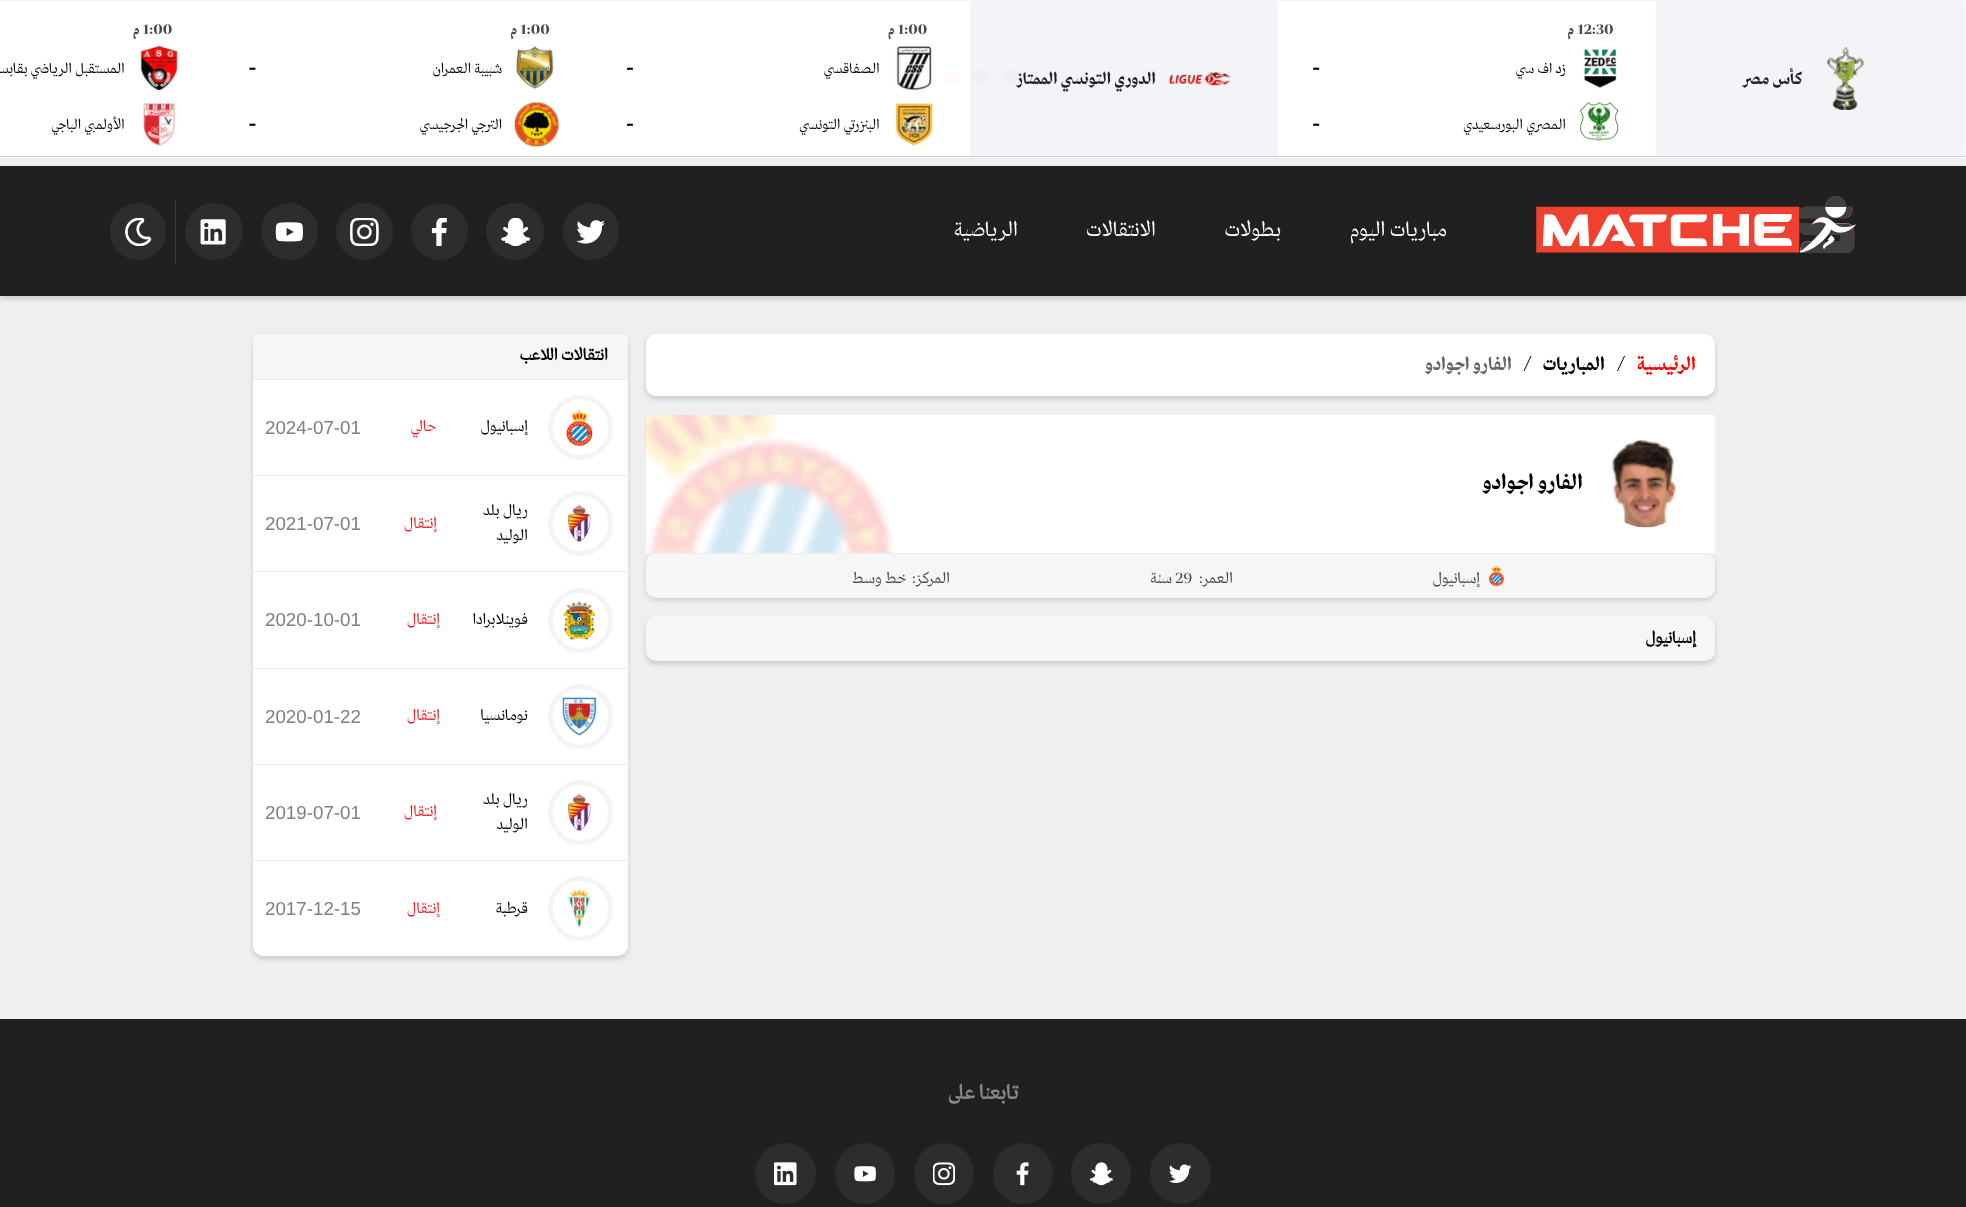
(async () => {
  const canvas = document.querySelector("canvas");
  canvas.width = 1966;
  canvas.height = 1207;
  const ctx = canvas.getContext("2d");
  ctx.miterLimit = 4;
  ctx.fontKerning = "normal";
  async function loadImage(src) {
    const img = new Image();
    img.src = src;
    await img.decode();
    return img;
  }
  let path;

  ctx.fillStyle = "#efefef";
  ctx.fillRect(0, 0, 1966, 1207);
  ctx.fillStyle = "#ffffff";
  ctx.fillRect(0, 0, 1966, 158);
  ctx.fillStyle = "#cccccc";
  ctx.fillRect(0, 156, 1966, 1);
  ctx.drawImage(await loadImage("img/1.png"), 0, 0, 1966, 157);
  ctx.fillStyle = "rgba(0, 0, 0, 0.15)";
  ctx.filter = "blur(2.5px)";
  ctx.beginPath();
  ctx.rect(0, 169, 1966, 130);
  ctx.fill();
  ctx.filter = "none";
  ctx.fillStyle = "#202020";
  ctx.fillRect(0, 166, 1966, 130);
  ctx.drawImage(await loadImage("img/2.png"), 1536, 196, 320, 57);
  ctx.fillStyle = "#2d2d2d";
  ctx.beginPath();
  ctx.roundRect(563, 203, 56, 57, 28);
  ctx.fill();
  ctx.drawImage(await loadImage("img/3.png"), 576, 220, 29, 24);
  ctx.beginPath();
  ctx.roundRect(486, 203, 58, 57, 28.5);
  ctx.fill();
  ctx.drawImage(await loadImage("img/4.png"), 501, 218, 29, 28);
  ctx.beginPath();
  ctx.arc(439.5, 231.5, 28.5, 0, Math.PI * 2);
  ctx.fill();
  ctx.drawImage(await loadImage("img/5.png"), 431, 218, 16, 28);
  ctx.beginPath();
  ctx.arc(364.5, 231.5, 28.5, 0, Math.PI * 2);
  ctx.fill();
  ctx.drawImage(await loadImage("img/6.png"), 350, 218, 29, 28);
  ctx.beginPath();
  ctx.arc(289.5, 231.5, 28.5, 0, Math.PI * 2);
  ctx.fill();
  ctx.drawImage(await loadImage("img/7.png"), 275, 222, 28, 20);
  ctx.beginPath();
  ctx.roundRect(185, 203, 58, 57, 28.5);
  ctx.fill();
  ctx.drawImage(await loadImage("img/8.png"), 200, 219, 26, 26);
  ctx.beginPath();
  ctx.roundRect(110, 203, 56, 57, 28);
  ctx.fill();
  ctx.fillStyle = "#3e3e3e";
  ctx.fillRect(175, 200, 1, 63);
  ctx.drawImage(await loadImage("img/9.png"), 125, 218, 27, 28);
  ctx.fillStyle = "rgba(0, 0, 0, 0.15)";
  ctx.filter = "blur(2.5px)";
  ctx.beginPath();
  ctx.roundRect(646, 336, 1069, 63, 10);
  ctx.fill();
  ctx.filter = "none";
  ctx.fillStyle = "#ffffff";
  ctx.beginPath();
  ctx.roundRect(646, 334, 1069, 62, 10);
  ctx.fill();
  ctx.fillStyle = "#000000";
  path = new Path2D("M1624 356H1625L1618 371H1617Z");
  ctx.fill(path);
  path = new Path2D("M1530.5 356H1531.5L1524.5 371H1523.5Z");
  ctx.fill(path);
  ctx.fillStyle = "rgba(0, 0, 0, 0.15)";
  ctx.filter = "blur(2.5px)";
  ctx.beginPath();
  ctx.roundRect(646, 555, 1069, 45, 10);
  ctx.fill();
  ctx.filter = "none";
  ctx.fillStyle = "#ffffff";
  ctx.fillRect(646, 415, 1069, 138);
  ctx.drawImage(await loadImage("img/10.png"), 1611, 440, 65, 88);
  ctx.drawImage(await loadImage("img/11.png"), 645, 415, 249, 138);
  ctx.fillStyle = "#f6f6f6";
  ctx.beginPath();
  ctx.roundRect(646, 553, 1069, 45, 10);
  ctx.fill();
  ctx.fillStyle = "#eeeeee";
  ctx.fillRect(651, 553, 1059, 1);
  ctx.drawImage(await loadImage("img/12.png"), 1489, 565, 16, 22);
  ctx.fillStyle = "rgba(0, 0, 0, 0.15)";
  ctx.filter = "blur(2.5px)";
  ctx.beginPath();
  ctx.roundRect(646, 619, 1069, 45, 10);
  ctx.fill();
  ctx.filter = "none";
  ctx.fillStyle = "#f6f6f6";
  ctx.beginPath();
  ctx.roundRect(646, 616, 1069, 45, 10);
  ctx.fill();
  ctx.fillStyle = "rgba(0, 0, 0, 0.15)";
  ctx.filter = "blur(2.5px)";
  ctx.beginPath();
  ctx.roundRect(253, 336, 375, 623, 10);
  ctx.fill();
  ctx.filter = "none";
  ctx.fillStyle = "#ffffff";
  ctx.beginPath();
  ctx.roundRect(253, 334, 375, 622, 10);
  ctx.fill();
  ctx.fillStyle = "#f6f6f6";
  ctx.fillRect(253, 334, 375, 45);
  ctx.fillStyle = "#eeeeee";
  ctx.fillRect(253, 379, 375, 1);
  ctx.beginPath();
  ctx.arc(580.5, 427.5, 30, 0, Math.PI * 2);
  ctx.strokeStyle = "#f3f4f7";
  ctx.lineWidth = 5;
  ctx.stroke();
  ctx.drawImage(await loadImage("img/13.png"), 566, 408, 27, 39);
  ctx.fillRect(253, 475, 375, 1);
  ctx.beginPath();
  ctx.arc(580.5, 523.5, 30, 0, Math.PI * 2);
  ctx.stroke();
  ctx.drawImage(await loadImage("img/14.png"), 568, 504, 23, 38);
  ctx.fillRect(253, 571, 375, 1);
  ctx.beginPath();
  ctx.arc(580.5, 620.5, 30, 0, Math.PI * 2);
  ctx.stroke();
  ctx.drawImage(await loadImage("img/15.png"), 563, 601, 32, 39);
  ctx.fillRect(253, 668, 375, 1);
  ctx.beginPath();
  ctx.arc(580.5, 716.5, 30, 0, Math.PI * 2);
  ctx.stroke();
  ctx.drawImage(await loadImage("img/16.png"), 562, 697, 35, 39);
  ctx.fillRect(253, 764, 375, 1);
  ctx.beginPath();
  ctx.arc(580.5, 812.5, 30, 0, Math.PI * 2);
  ctx.stroke();
  ctx.drawImage(await loadImage("img/14.png"), 568, 793, 23, 38);
  ctx.fillRect(253, 860, 375, 1);
  ctx.beginPath();
  ctx.arc(580.5, 908.5, 30, 0, Math.PI * 2);
  ctx.stroke();
  ctx.drawImage(await loadImage("img/17.png"), 568, 889, 23, 39);
  ctx.fillStyle = "#202020";
  ctx.fillRect(0, 1019, 1966, 188);
  ctx.fillStyle = "#2d2d2d";
  ctx.beginPath();
  ctx.arc(1180.5, 1173.5, 30.5, 0, Math.PI * 2);
  ctx.fill();
  ctx.drawImage(await loadImage("img/18.png"), 1169, 1164, 23, 19);
  ctx.beginPath();
  ctx.roundRect(1071, 1143, 60, 61, 30);
  ctx.fill();
  ctx.drawImage(await loadImage("img/19.png"), 1090, 1162, 23, 24);
  ctx.beginPath();
  ctx.roundRect(993, 1143, 60, 61, 30);
  ctx.fill();
  ctx.drawImage(await loadImage("img/20.png"), 1016, 1162, 13, 24);
  ctx.beginPath();
  ctx.roundRect(914, 1143, 60, 61, 30);
  ctx.fill();
  ctx.drawImage(await loadImage("img/21.png"), 933, 1162, 22, 24);
  ctx.beginPath();
  ctx.roundRect(835, 1143, 60, 61, 30);
  ctx.fill();
  ctx.drawImage(await loadImage("img/22.png"), 854, 1166, 22, 16);
  ctx.beginPath();
  ctx.arc(785.5, 1173.5, 30.5, 0, Math.PI * 2);
  ctx.fill();
  ctx.drawImage(await loadImage("img/23.png"), 774, 1162, 23, 24);
  ctx.direction = "rtl";
  ctx.font = "25px '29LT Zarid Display'";
  ctx.fillStyle = "#ffffff";
  for (const [text, x, y] of [
    ["مباريات اليوم", 1447, 236],
    ["بطولات", 1281, 236],
    ["الانتقالات", 1156, 236],
    ["الرياضية", 1018, 236],
  ]) {
    ctx.fillText(text, x, y);
  }
  ctx.font = "bold 22.5px '29LT Zarid Display'";
  ctx.fillStyle = "#ff0000";
  ctx.fillText("الرئيسية", 1696, 370);
  ctx.fillStyle = "#000000";
  ctx.fillText("المباريات", 1605, 370);
  ctx.fillStyle = "#656565";
  ctx.fillText("الفارو اجوادو", 1512, 370);
  ctx.font = "bold 26px '29LT Zarid Display'";
  ctx.fillStyle = "#000000";
  ctx.fillText("الفارو اجوادو", 1583, 489);
  ctx.font = "18.75px '29LT Zarid Display'";
  ctx.fillStyle = "#444444";
  ctx.fillText("إسبانيول", 1480, 583);
  ctx.fillText("العمر:", 1233, 583);
  ctx.direction = "ltr";
  ctx.fillText("29", 1175, 583);
  ctx.direction = "rtl";
  for (const [text, x, y] of [
    ["سنة", 1172, 583],
    ["المركز:", 950, 583],
    ["خط وسط", 906, 583],
  ]) {
    ctx.fillText(text, x, y);
  }
  ctx.font = "bold 20px '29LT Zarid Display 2'";
  ctx.fillStyle = "#000000";
  ctx.fillText("إسبانيول", 1696, 643);
  ctx.fillText("انتقالات اللاعب", 608, 360);
  ctx.font = "18.75px '29LT Zarid Display'";
  ctx.fillText("إسبانيول", 528, 431);
  ctx.fillStyle = "#ed1c24";
  ctx.fillText("حالي", 436, 431);
  ctx.direction = "ltr";
  ctx.font = "18.75px Liberation Sans";
  ctx.fillStyle = "#808080";
  ctx.fillText("2024-07-01", 265, 434);
  ctx.direction = "rtl";
  ctx.font = "18.75px '29LT Zarid Display'";
  ctx.fillStyle = "#000000";
  ctx.fillText("ريال بلد", 528, 515);
  ctx.fillText("الوليد", 528, 540);
  ctx.fillStyle = "#ed1c24";
  ctx.fillText("إنتقال", 437, 528);
  ctx.direction = "ltr";
  ctx.font = "18.75px Liberation Sans";
  ctx.fillStyle = "#808080";
  ctx.fillText("2021-07-01", 265, 530);
  ctx.direction = "rtl";
  ctx.font = "18.75px '29LT Zarid Display'";
  ctx.fillStyle = "#000000";
  ctx.fillText("فوينلابرادا", 528, 624);
  ctx.fillStyle = "#ed1c24";
  ctx.fillText("إنتقال", 440, 624);
  ctx.direction = "ltr";
  ctx.font = "18.75px Liberation Sans";
  ctx.fillStyle = "#808080";
  ctx.fillText("2020-10-01", 265, 626);
  ctx.direction = "rtl";
  ctx.font = "18.75px '29LT Zarid Display'";
  ctx.fillStyle = "#000000";
  ctx.fillText("نومانسيا", 528, 720);
  ctx.fillStyle = "#ed1c24";
  ctx.fillText("إنتقال", 440, 720);
  ctx.direction = "ltr";
  ctx.font = "18.75px Liberation Sans";
  ctx.fillStyle = "#808080";
  ctx.fillText("2020-01-22", 265, 723);
  ctx.direction = "rtl";
  ctx.font = "18.75px '29LT Zarid Display'";
  ctx.fillStyle = "#000000";
  ctx.fillText("ريال بلد", 528, 804);
  ctx.fillText("الوليد", 528, 829);
  ctx.fillStyle = "#ed1c24";
  ctx.fillText("إنتقال", 437, 816);
  ctx.direction = "ltr";
  ctx.font = "18.75px Liberation Sans";
  ctx.fillStyle = "#808080";
  ctx.fillText("2019-07-01", 265, 819);
  ctx.direction = "rtl";
  ctx.font = "18.75px '29LT Zarid Display'";
  ctx.fillStyle = "#000000";
  ctx.fillText("قرطبة", 528, 913);
  ctx.fillStyle = "#ed1c24";
  ctx.fillText("إنتقال", 440, 913);
  ctx.direction = "ltr";
  ctx.font = "18.75px Liberation Sans";
  ctx.fillStyle = "#808080";
  ctx.fillText("2017-12-15", 265, 915);
  ctx.direction = "rtl";
  ctx.font = "bold 25px '29LT Zarid Display 2'";
  ctx.fillStyle = "#868686";
  ctx.fillText("تابعنا على", 1018, 1099);
})();
